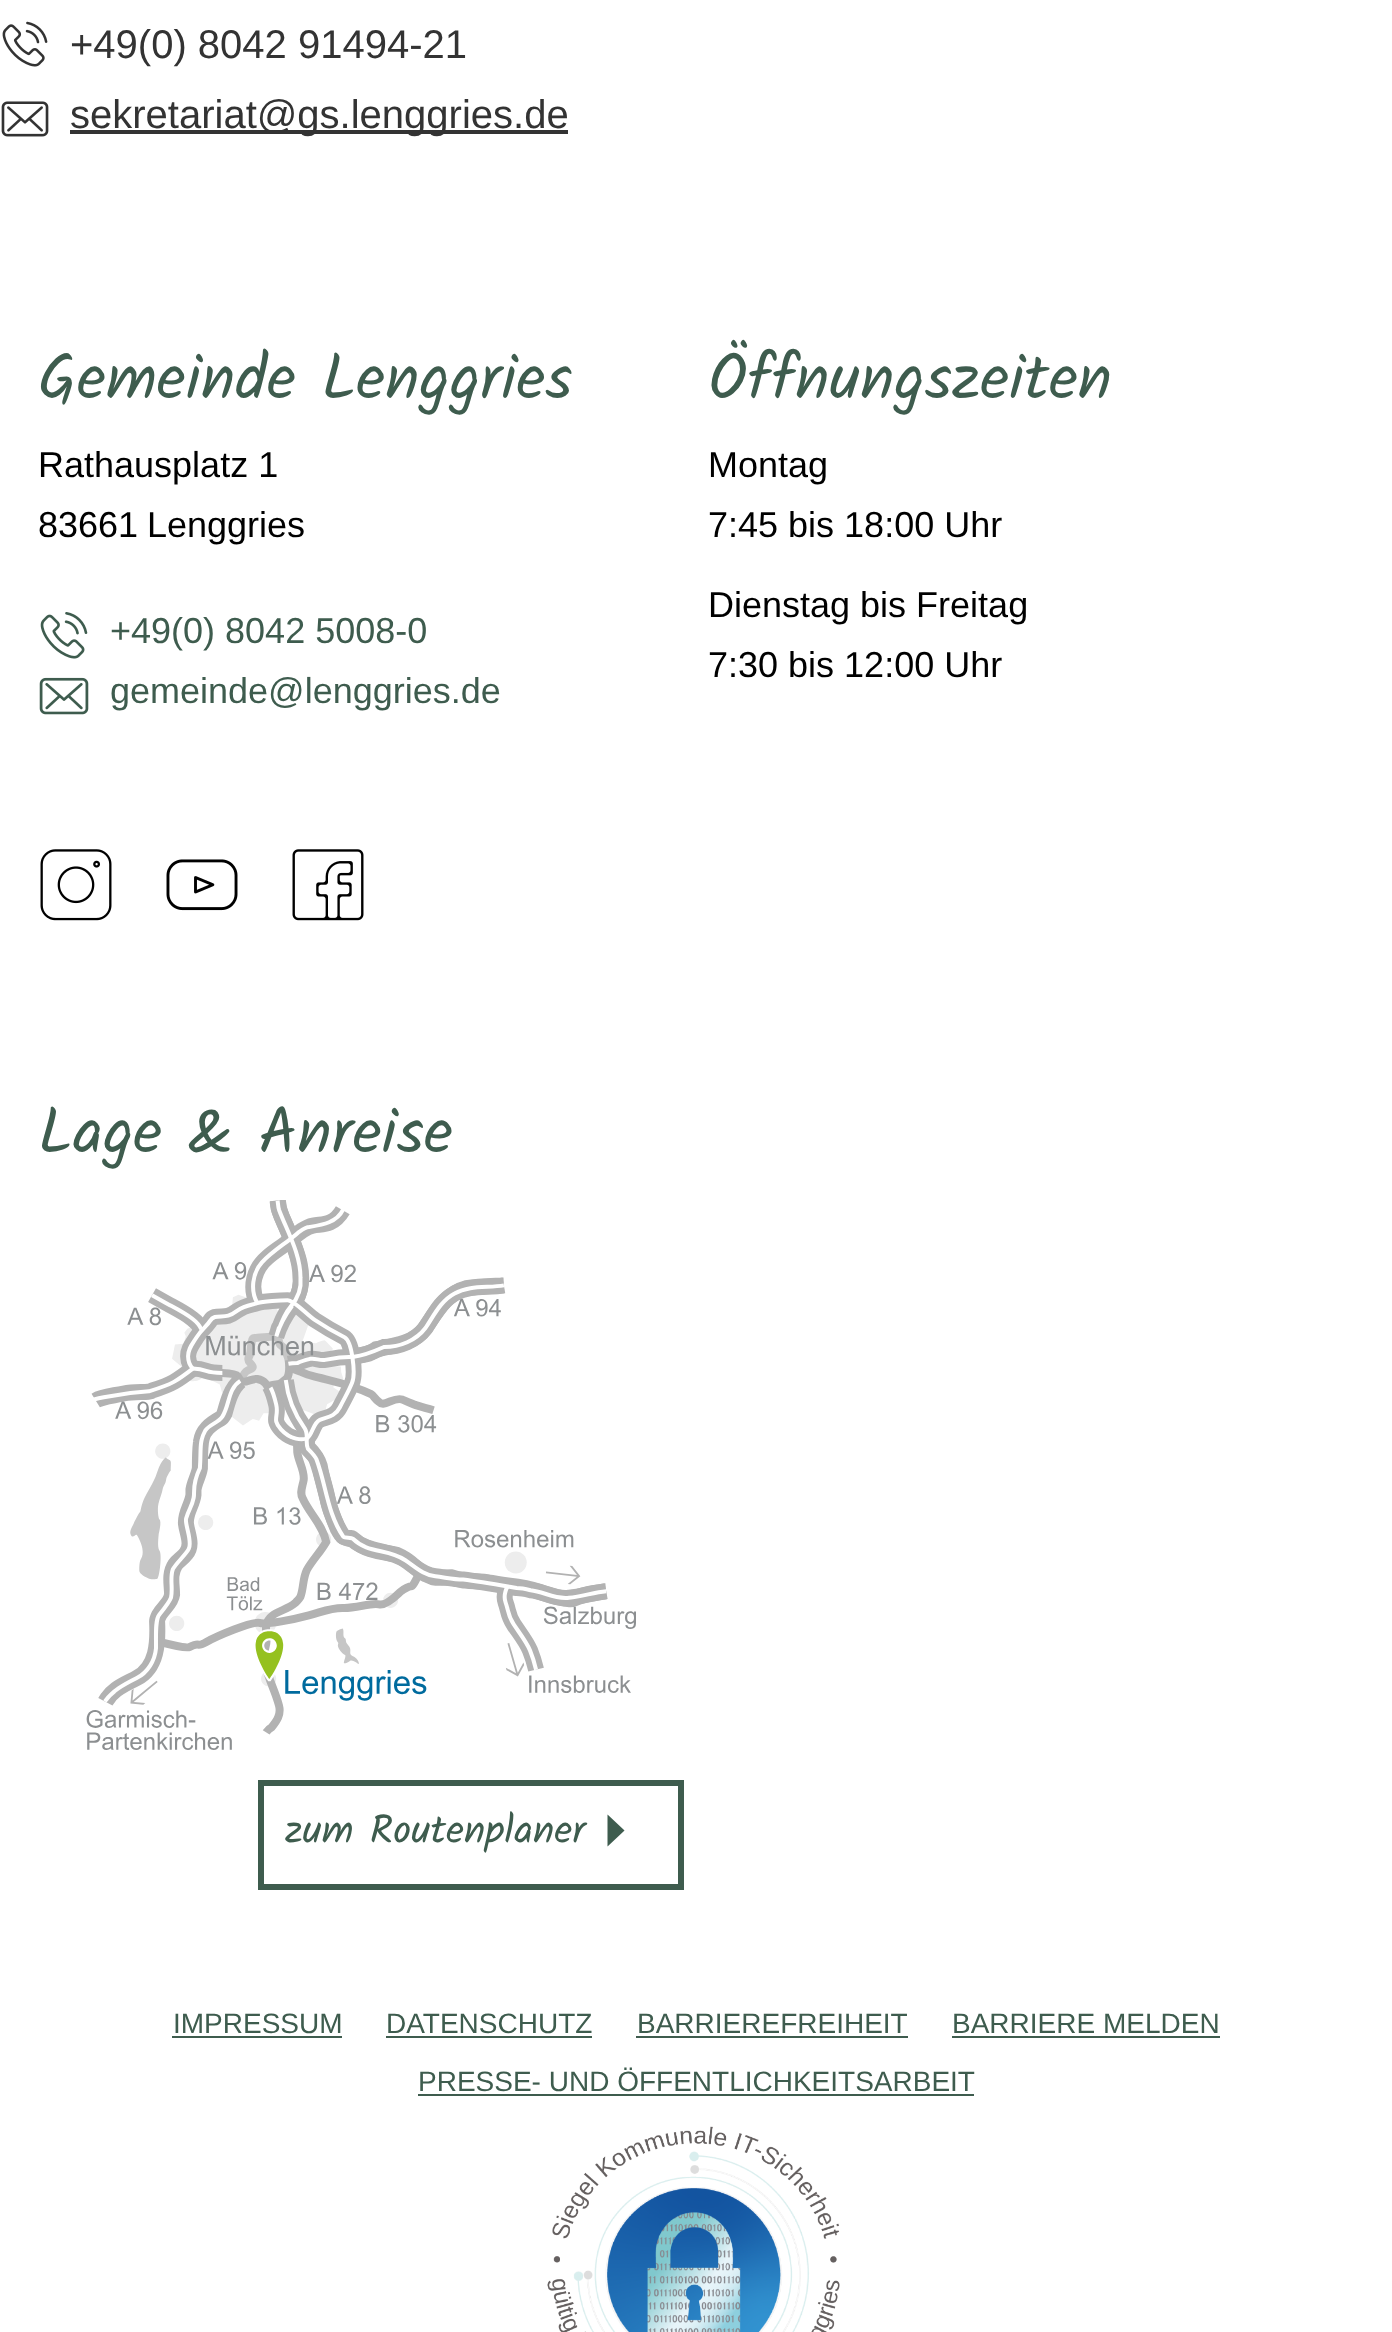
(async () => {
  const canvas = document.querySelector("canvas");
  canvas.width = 1392;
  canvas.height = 2332;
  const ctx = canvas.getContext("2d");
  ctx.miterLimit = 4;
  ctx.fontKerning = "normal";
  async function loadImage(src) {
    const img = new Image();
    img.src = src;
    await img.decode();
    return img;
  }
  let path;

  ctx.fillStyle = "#ffffff";
  ctx.fillRect(0, 0, 1392, 2332);
  ctx.drawImage(await loadImage("img/1.png"), 2, 21, 46, 46);
  ctx.drawImage(await loadImage("img/2.png"), 1, 101, 48, 36);
  ctx.fillStyle = "#333333";
  ctx.fillRect(70, 130, 498, 4);
  ctx.drawImage(await loadImage("img/3.png"), 40, 612, 48, 47);
  ctx.drawImage(await loadImage("img/4.png"), 39, 677, 50, 38);
  ctx.drawImage(await loadImage("img/5.png"), 40, 849, 72, 72);
  ctx.drawImage(await loadImage("img/6.png"), 166, 859, 72, 52);
  ctx.drawImage(await loadImage("img/7.png"), 292, 849, 72, 72);
  ctx.drawImage(await loadImage("img/8.png"), 86, 1200, 550, 550);
  ctx.strokeStyle = "#3e5c4e";
  ctx.lineWidth = 6;
  ctx.strokeRect(261, 1783, 420, 104);
  ctx.fillStyle = "#3e5c4e";
  path = new Path2D("M607.5 1814.5V1846.5L624.5 1830.5Z");
  ctx.fill(path);
  for (const [x, y, w, h, color] of [
    [172, 2036, 170, 2, "#3e5c4e"],
    [386, 2036, 206, 2, "#3e5c4e"],
    [636, 2036, 272, 2, "#3e5c4e"],
    [952, 2036, 268, 2, "#3e5c4e"],
    [418, 2094, 556, 2, "#3e5c4e"],
  ]) {
    ctx.fillStyle = color;
    ctx.fillRect(x, y, w, h);
  }
  ctx.drawImage(await loadImage("img/9.png"), 547, 2126, 293, 206);
  ctx.font = "40px Liberation Sans";
  ctx.fillStyle = "#333333";
  ctx.fillText("+49(0) 8042 91494-21", 70, 58);
  ctx.fillText("sekretariat@gs.lenggries.de", 70, 128);
  ctx.font = "64px Kalam";
  ctx.fillStyle = "#3e5c4e";
  ctx.fillText("Gemeinde Lenggries", 38, 399);
  ctx.font = "36px Liberation Sans";
  ctx.fillStyle = "#000000";
  for (const [text, x, y] of [
    ["Rathausplatz 1", 38, 477],
    ["83661", 38, 537],
    ["Lenggries", 147, 537],
  ]) {
    ctx.fillText(text, x, y);
  }
  ctx.fillStyle = "#3e5c4e";
  ctx.fillText("+49(0) 8042 5008-0", 110, 643);
  ctx.fillText("gemeinde@lenggries.de", 110, 703);
  ctx.font = "64px Kalam";
  ctx.fillText("Öffnungszeiten", 708, 399);
  ctx.font = "36px Liberation Sans";
  ctx.fillStyle = "#000000";
  for (const [text, x, y] of [
    ["Montag", 708, 477],
    ["7:45 bis 18:00 Uhr", 708, 537],
    ["Dienstag bis Freitag", 708, 617],
    ["7:30 bis 12:00 Uhr", 708, 677],
  ]) {
    ctx.fillText(text, x, y);
  }
  ctx.font = "64px Kalam";
  ctx.fillStyle = "#3e5c4e";
  ctx.fillText("Lage & Anreise", 38, 1153);
  ctx.font = "40px Kalam";
  ctx.fillText("zum Routenplaner", 285, 1843);
  ctx.font = "28px Liberation Sans";
  for (const [text, x, y] of [
    ["IMPRESSUM", 173, 2033],
    ["DATENSCHUTZ", 386, 2033],
    ["BARRIEREFREIHEIT", 637, 2033],
    ["BARRIERE MELDEN", 952, 2033],
    ["PRESSE- UND ÖFFENTLICHKEITSARBEIT", 418, 2091],
  ]) {
    ctx.fillText(text, x, y);
  }
})();
